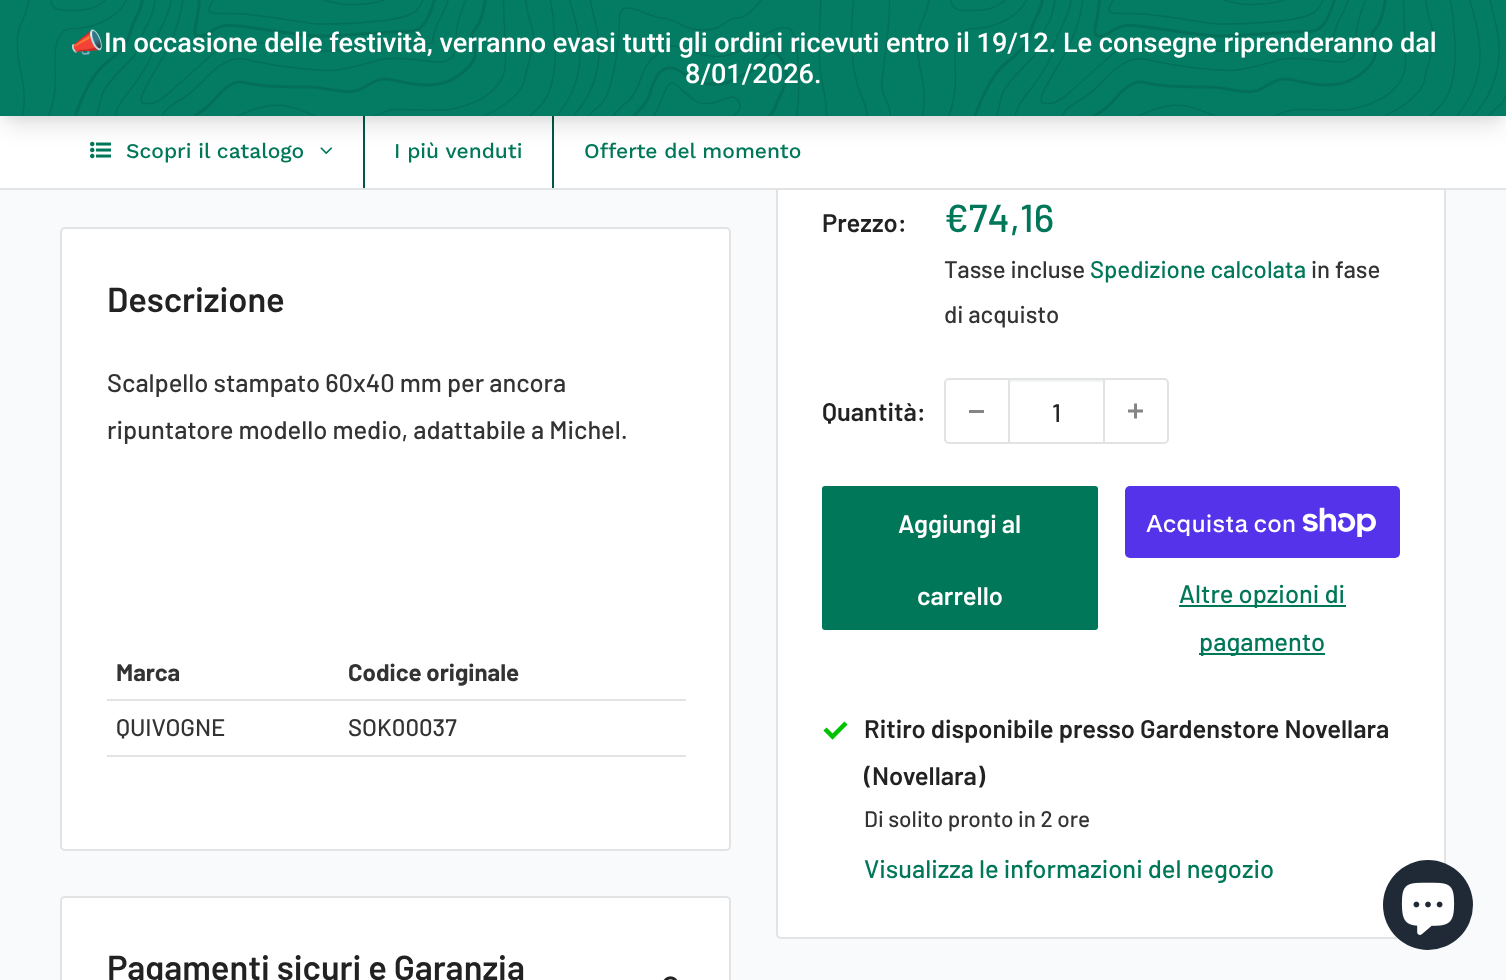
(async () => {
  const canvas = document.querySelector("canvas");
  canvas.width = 1506;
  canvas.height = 980;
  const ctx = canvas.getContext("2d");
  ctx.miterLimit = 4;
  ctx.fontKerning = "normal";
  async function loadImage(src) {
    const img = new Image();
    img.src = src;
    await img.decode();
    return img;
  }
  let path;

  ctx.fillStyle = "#f9fafb";
  ctx.fillRect(0, 0, 1506, 980);
  ctx.fillStyle = "#ffffff";
  ctx.beginPath();
  ctx.roundRect(777, -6, 668, 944, 4);
  ctx.fill();
  ctx.strokeStyle = "#e1e3e4";
  ctx.lineWidth = 2;
  ctx.stroke();
  for (const [x, y, w, h, color] of [
    [0, 116, 1506, 72, "#ffffff"],
    [363, 113, 2, 75, "#025844"],
    [552, 113, 2, 75, "#025844"],
  ]) {
    ctx.fillStyle = color;
    ctx.fillRect(x, y, w, h);
  }
  ctx.fillStyle = "rgba(0, 0, 0, 0.05)";
  ctx.filter = "blur(4.5px)";
  ctx.beginPath();
  ctx.rect(3, 9, 1500, 110);
  ctx.fill();
  ctx.filter = "none";
  ctx.drawImage(await loadImage("img/2.png"), 90, 141, 21, 18);
  ctx.drawImage(await loadImage("img/3.png"), 320, 147, 12, 8);
  ctx.fillStyle = "rgba(0, 0, 0, 0.1)";
  ctx.filter = "blur(11px)";
  ctx.beginPath();
  ctx.rect(5, 20, 1497, 106);
  ctx.fill();
  ctx.filter = "none";
  ctx.fillStyle = "#047c64";
  ctx.fillRect(0, 0, 1506, 116);
  ctx.drawImage(await loadImage("img/1.png"), 16, 0, 1490, 116);
  ctx.fillStyle = "#e1e3e4";
  ctx.fillRect(0, 188, 1506, 2);
  ctx.fillStyle = "#ffffff";
  ctx.beginPath();
  ctx.roundRect(61, 228, 669, 622, 4);
  ctx.fill();
  ctx.stroke();
  ctx.fillStyle = "#e1e3e4";
  ctx.fillRect(107, 699, 579, 2);
  ctx.fillRect(107, 755, 579, 2);
  ctx.beginPath();
  ctx.roundRect(945, 379, 223, 64, 4);
  ctx.stroke();
  for (const [x, y, w, h, color] of [
    [969, 410, 15, 3, "#858585"],
    [1010, 380, 93, 2, "#f3f4f4"],
    [1103, 380, 2, 63, "#e1e3e4"],
    [1008, 380, 2, 63, "#e1e3e4"],
  ]) {
    ctx.fillStyle = color;
    ctx.fillRect(x, y, w, h);
  }
  ctx.drawImage(await loadImage("img/4.png"), 1128, 403, 15, 16);
  ctx.fillStyle = "#007759";
  ctx.beginPath();
  ctx.roundRect(822, 486, 276, 144, 3);
  ctx.fill();
  ctx.fillStyle = "#5433eb";
  ctx.beginPath();
  ctx.roundRect(1125, 486, 275, 72, 5);
  ctx.fill();
  ctx.drawImage(await loadImage("img/5.png"), 1302, 507, 74, 30);
  ctx.fillStyle = "#007759";
  ctx.fillRect(1179, 605, 167, 2);
  ctx.fillRect(1199, 653, 126, 2);
  path = new Path2D("M825 729L832.5 736.5L846 723");
  ctx.strokeStyle = "#00c200";
  ctx.lineWidth = 4.5;
  ctx.stroke(path);
  ctx.fillStyle = "#ffffff";
  ctx.beginPath();
  ctx.roundRect(61, 897, 669, 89, 4);
  ctx.fill();
  ctx.strokeStyle = "#e1e3e4";
  ctx.lineWidth = 2;
  ctx.stroke();
  ctx.drawImage(await loadImage("img/6.png"), 663, 976, 15, 4);
  ctx.fillStyle = "#202a36";
  ctx.beginPath();
  ctx.arc(1428, 905, 45, 0, Math.PI * 2);
  ctx.fill();
  ctx.drawImage(await loadImage("img/7.png"), 1401, 882, 54, 53);
  ctx.font = "27.1px Noto Color Emoji";
  ctx.fillStyle = "#ffffff";
  ctx.fillText("📣", 70, 52);
  ctx.font = "500 27.1px Roboto";
  ctx.fillText("In occasione delle festività, verranno evasi tutti gli ordini ricevuti entro il 19/12. Le consegne riprenderanno dal", 104, 52);
  ctx.fillText("8/01/2026.", 685, 83);
  ctx.font = "500 21px Work Sans";
  ctx.fillStyle = "#007759";
  for (const [text, x, y] of [
    ["Scopri il catalogo", 126, 158],
    ["I più venduti", 394, 158],
    ["Offerte del momento", 584, 158],
  ]) {
    ctx.fillText(text, x, y);
  }
  ctx.font = "600 34.5px Barlow";
  ctx.fillStyle = "#222222";
  ctx.fillText("Descrizione", 107, 312);
  ctx.font = "500 25.5px Barlow";
  ctx.fillStyle = "#333333";
  ctx.fillText("Scalpello stampato 60x40 mm per ancora", 107, 392);
  ctx.fillText("ripuntatore modello medio, adattabile a Michel.", 107, 439);
  ctx.font = "bold 24px Barlow";
  ctx.fillText("Marca", 116, 681);
  ctx.fillText("Codice originale", 348, 681);
  ctx.font = "500 24px Barlow";
  ctx.fillText("QUIVOGNE", 116, 736);
  ctx.fillText("SOK00037", 348, 736);
  ctx.font = "600 25.5px Barlow";
  ctx.fillStyle = "#222222";
  ctx.fillText("Prezzo:", 822, 232);
  ctx.font = "500 39px Barlow";
  ctx.fillStyle = "#007759";
  ctx.fillText("€74,16", 944, 232);
  ctx.font = "500 24px Barlow";
  ctx.fillStyle = "#333333";
  ctx.fillText("Tasse incluse", 944, 278);
  ctx.fillStyle = "#007759";
  ctx.fillText("Spedizione calcolata", 1090, 278);
  ctx.fillStyle = "#333333";
  ctx.fillText("in fase", 1311, 278);
  ctx.fillText("di acquisto", 944, 323);
  ctx.font = "600 25.5px Barlow";
  ctx.fillStyle = "#222222";
  ctx.fillText("Quantità:", 822, 421);
  ctx.font = "500 25.5px Barlow";
  ctx.fillText("1", 1052, 422);
  ctx.font = "600 25.5px Barlow";
  ctx.fillStyle = "#ffffff";
  ctx.fillText("Aggiungi al", 898, 533);
  ctx.fillText("carrello", 917, 605);
  ctx.font = "500 24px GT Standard";
  ctx.fillText("Acquista con", 1146, 532);
  ctx.font = "500 25.5px Barlow";
  ctx.fillStyle = "#007759";
  ctx.fillText("Altre opzioni di", 1179, 603);
  ctx.fillText("pagamento", 1199, 651);
  ctx.font = "600 25.5px Barlow";
  ctx.fillStyle = "#222222";
  ctx.fillText("Ritiro disponibile presso Gardenstore Novellara", 864, 738);
  ctx.fillText("(Novellara)", 864, 785);
  ctx.font = "500 22.5px Barlow";
  ctx.fillStyle = "#333333";
  ctx.fillText("Di solito pronto in 2 ore", 864, 827);
  ctx.font = "500 25.5px Barlow";
  ctx.fillStyle = "#007759";
  ctx.fillText("Visualizza le informazioni del negozio", 864, 878);
  ctx.font = "600 34.5px Barlow";
  ctx.fillStyle = "#222222";
  ctx.fillText("Pagamenti sicuri e Garanzia", 107, 980);
})();
